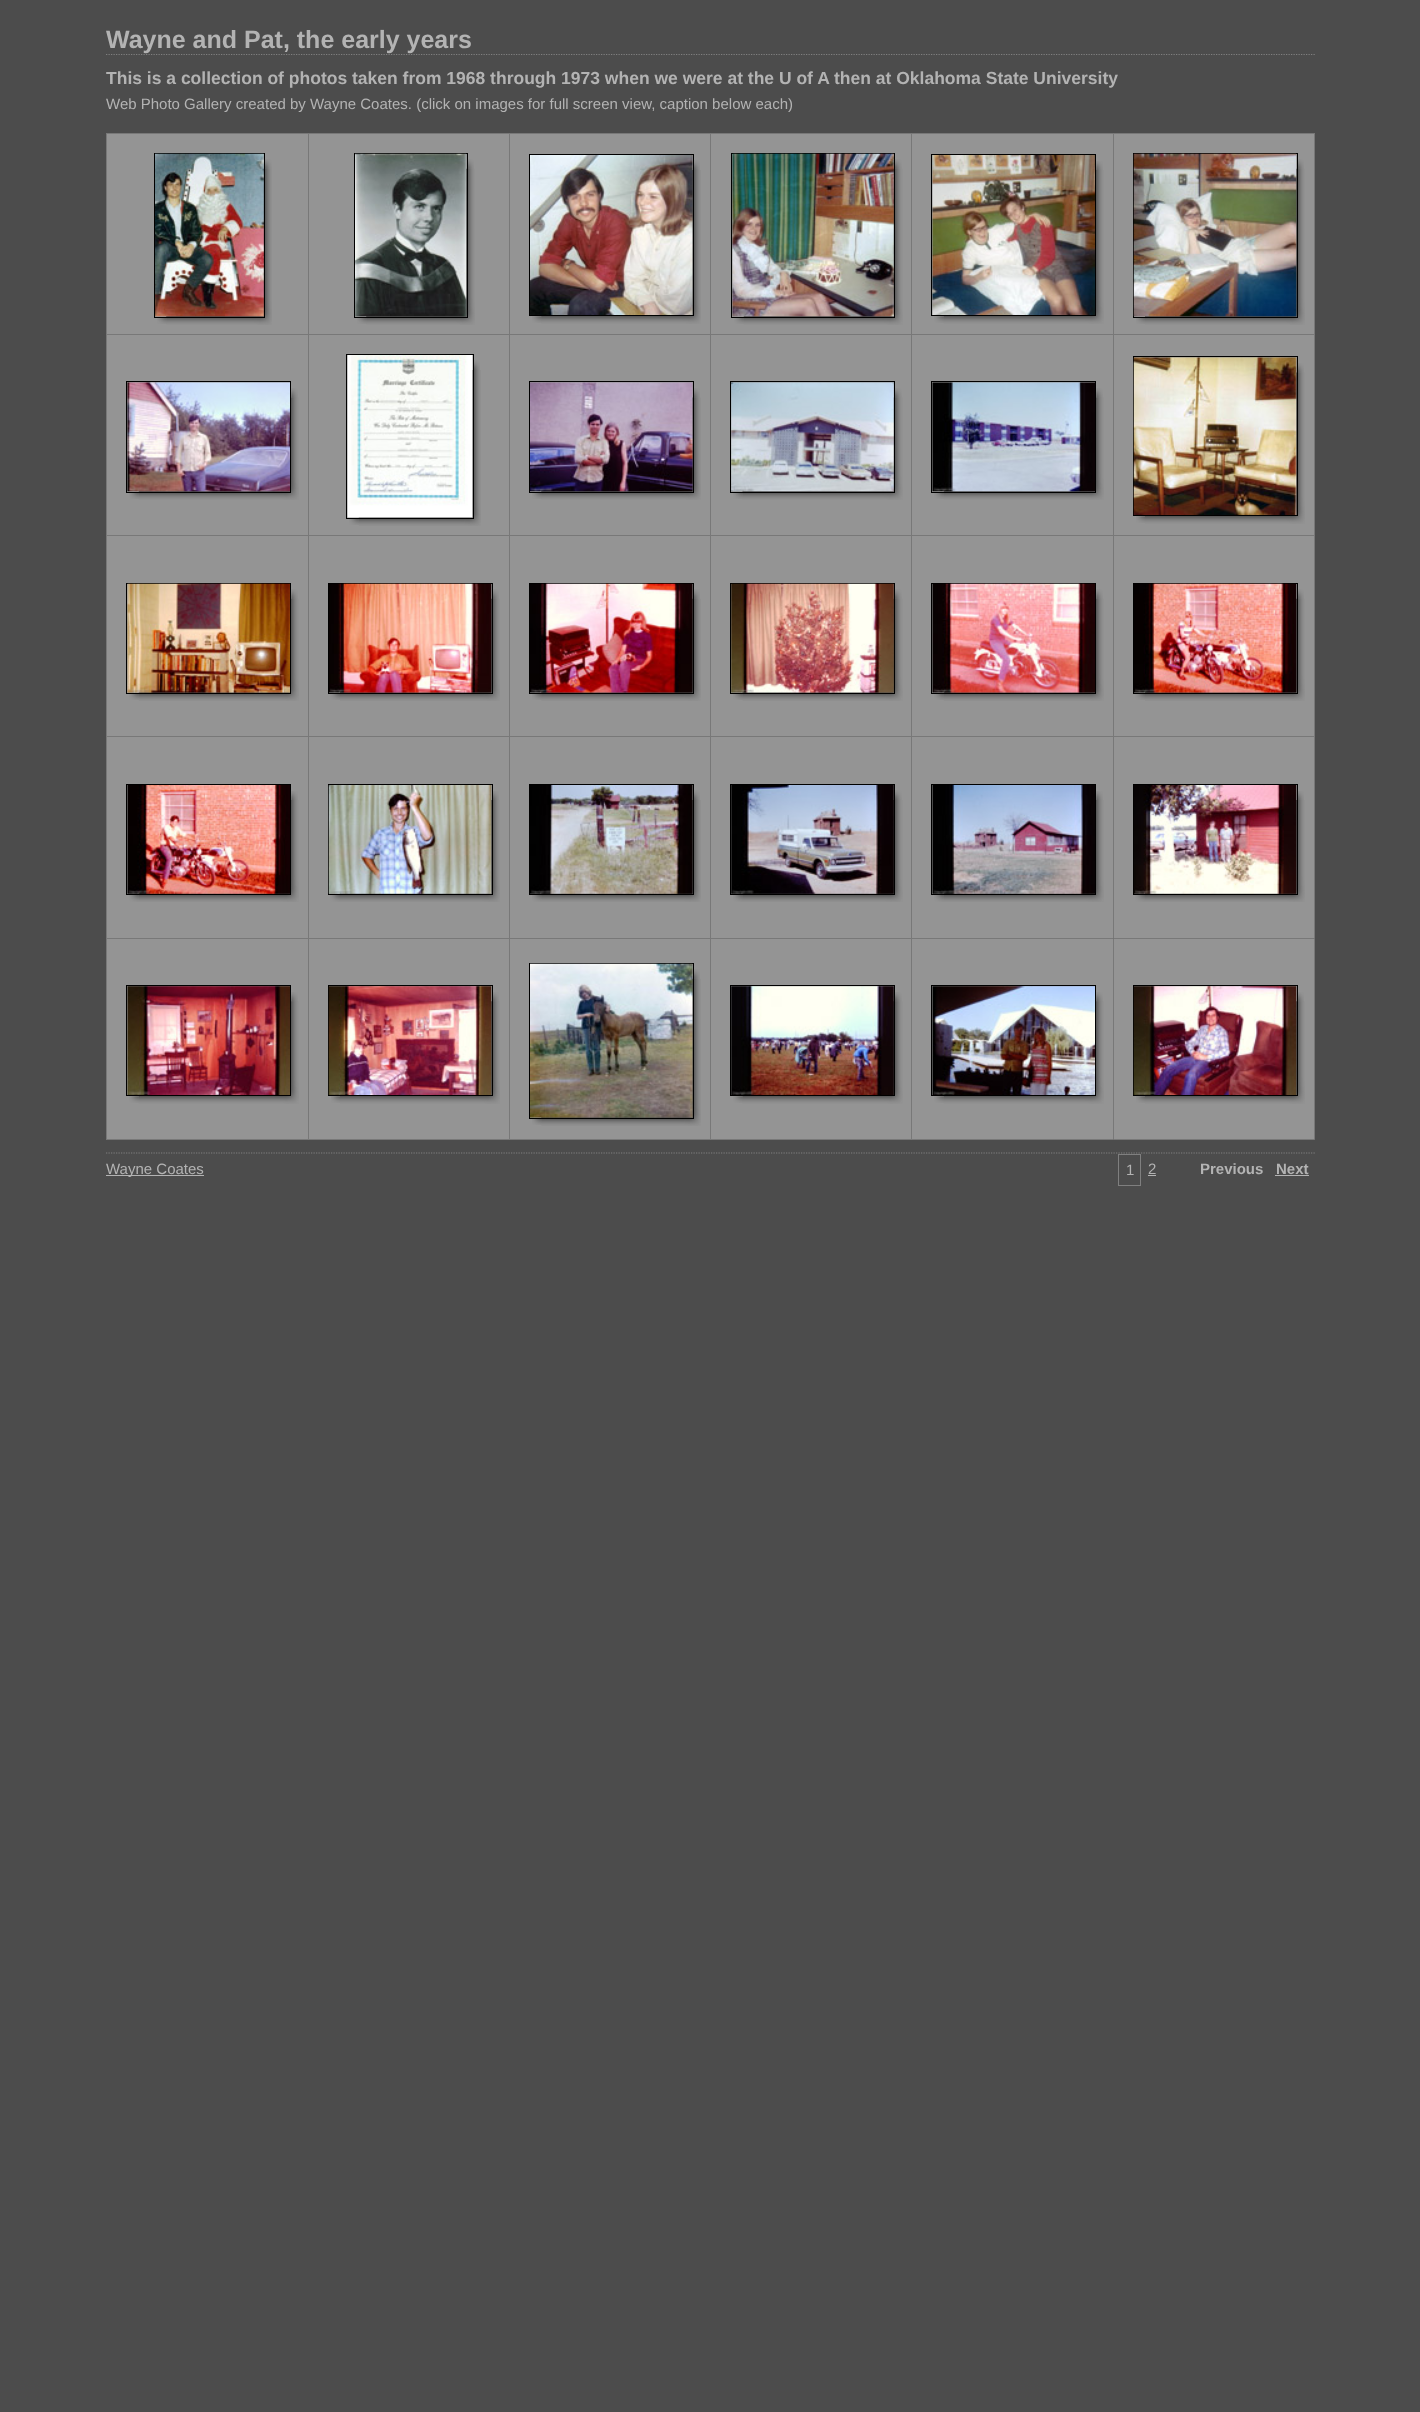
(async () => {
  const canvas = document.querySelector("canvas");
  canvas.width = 1420;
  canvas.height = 2412;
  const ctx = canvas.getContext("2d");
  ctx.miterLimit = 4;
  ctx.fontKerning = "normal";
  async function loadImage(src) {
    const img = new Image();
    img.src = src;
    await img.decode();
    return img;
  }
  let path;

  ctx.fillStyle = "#4c4c4c";
  ctx.fillRect(0, 0, 1420, 2412);
  path = new Path2D("M106 54.5H1315");
  ctx.strokeStyle = "#7f7f7f";
  ctx.lineWidth = 1.2;
  ctx.setLineDash([1.25, 1.25]);
  ctx.stroke(path);
  path = new Path2D("M106 1153H1315");
  ctx.stroke(path);
  for (const [x, y, w, h, color] of [
    [107, 134, 201, 200, "#949494"],
    [106, 133, 1209, 1, "#787878"],
    [106, 133, 1, 201, "#787878"],
  ]) {
    ctx.fillStyle = color;
    ctx.fillRect(x, y, w, h);
  }
  ctx.drawImage(await loadImage("img/1.png"), 166, 168, 106, 157);
  ctx.strokeStyle = "#000000";
  ctx.lineWidth = 1;
  ctx.setLineDash([]);
  ctx.strokeRect(154.5, 153.5, 110, 164);
  ctx.drawImage(await loadImage("img/2.png"), 155, 153, 109, 164);
  ctx.drawImage(await loadImage("img/3.png"), 265, 159, 7, 10);
  ctx.drawImage(await loadImage("img/4.png"), 157, 318, 10, 6);
  ctx.fillStyle = "#949494";
  ctx.fillRect(309, 134, 200, 200);
  ctx.fillStyle = "#787878";
  ctx.fillRect(308, 133, 1, 201);
  ctx.drawImage(await loadImage("img/5.png"), 366, 168, 109, 157);
  ctx.strokeRect(354.5, 153.5, 113, 164);
  ctx.drawImage(await loadImage("img/6.png"), 355, 153, 112, 164);
  ctx.drawImage(await loadImage("img/7.png"), 468, 159, 6, 10);
  ctx.drawImage(await loadImage("img/4.png"), 357, 318, 10, 6);
  ctx.fillStyle = "#949494";
  ctx.fillRect(510, 134, 200, 200);
  ctx.fillStyle = "#787878";
  ctx.fillRect(509, 133, 1, 201);
  ctx.drawImage(await loadImage("img/8.png"), 541, 170, 160, 154);
  ctx.strokeRect(529.5, 154.5, 164, 161);
  ctx.drawImage(await loadImage("img/9.png"), 530, 155, 163, 160);
  ctx.drawImage(await loadImage("img/10.png"), 694, 160, 6, 10);
  ctx.drawImage(await loadImage("img/11.png"), 532, 316, 10, 7);
  ctx.fillStyle = "#949494";
  ctx.fillRect(711, 134, 200, 200);
  ctx.fillStyle = "#787878";
  ctx.fillRect(710, 133, 1, 201);
  ctx.drawImage(await loadImage("img/12.png"), 743, 168, 160, 157);
  ctx.strokeRect(731.5, 153.5, 163, 164);
  ctx.drawImage(await loadImage("img/13.png"), 732, 153, 162, 164);
  ctx.drawImage(await loadImage("img/14.png"), 895, 159, 7, 10);
  ctx.drawImage(await loadImage("img/15.png"), 734, 318, 10, 6);
  ctx.fillStyle = "#949494";
  ctx.fillRect(912, 134, 201, 200);
  ctx.fillStyle = "#787878";
  ctx.fillRect(911, 133, 1, 201);
  ctx.drawImage(await loadImage("img/16.png"), 943, 170, 161, 154);
  ctx.strokeRect(931.5, 154.5, 164, 161);
  ctx.drawImage(await loadImage("img/17.png"), 932, 155, 163, 160);
  ctx.drawImage(await loadImage("img/18.png"), 1096, 161, 7, 9);
  ctx.drawImage(await loadImage("img/19.png"), 934, 316, 10, 7);
  for (const [x, y, w, h, color] of [
    [1114, 134, 200, 200, "#949494"],
    [1314, 133, 1, 201, "#787878"],
    [1113, 133, 1, 201, "#787878"],
  ]) {
    ctx.fillStyle = color;
    ctx.fillRect(x, y, w, h);
  }
  ctx.drawImage(await loadImage("img/20.png"), 1145, 168, 160, 157);
  ctx.strokeRect(1133.5, 153.5, 164, 164);
  ctx.drawImage(await loadImage("img/21.png"), 1133, 153, 164, 164);
  ctx.drawImage(await loadImage("img/7.png"), 1298, 159, 6, 10);
  ctx.drawImage(await loadImage("img/22.png"), 1136, 318, 9, 6);
  for (const [x, y, w, h, color] of [
    [107, 335, 201, 200, "#949494"],
    [106, 334, 1209, 1, "#787878"],
    [106, 334, 1, 201, "#787878"],
  ]) {
    ctx.fillStyle = color;
    ctx.fillRect(x, y, w, h);
  }
  ctx.drawImage(await loadImage("img/23.png"), 138, 397, 161, 103);
  ctx.strokeRect(126.5, 381.5, 164, 111);
  ctx.drawImage(await loadImage("img/24.png"), 127, 382, 163, 110);
  ctx.drawImage(await loadImage("img/25.png"), 291, 388, 7, 10);
  ctx.drawImage(await loadImage("img/15.png"), 129, 493, 10, 6);
  ctx.fillStyle = "#949494";
  ctx.fillRect(309, 335, 200, 200);
  ctx.fillStyle = "#787878";
  ctx.fillRect(308, 334, 1, 201);
  ctx.drawImage(await loadImage("img/26.png"), 358, 370, 123, 156);
  ctx.strokeRect(346.5, 354.5, 127, 164);
  ctx.drawImage(await loadImage("img/27.png"), 347, 355, 126, 163);
  ctx.drawImage(await loadImage("img/28.png"), 474, 360, 6, 10);
  ctx.drawImage(await loadImage("img/29.png"), 349, 519, 10, 6);
  ctx.fillStyle = "#949494";
  ctx.fillRect(510, 335, 200, 200);
  ctx.fillStyle = "#787878";
  ctx.fillRect(509, 334, 1, 201);
  ctx.drawImage(await loadImage("img/30.png"), 541, 397, 160, 103);
  ctx.strokeRect(529.5, 381.5, 164, 111);
  ctx.drawImage(await loadImage("img/31.png"), 530, 382, 163, 110);
  ctx.drawImage(await loadImage("img/32.png"), 694, 388, 6, 10);
  ctx.drawImage(await loadImage("img/33.png"), 532, 493, 10, 6);
  ctx.fillStyle = "#949494";
  ctx.fillRect(711, 335, 200, 200);
  ctx.fillStyle = "#787878";
  ctx.fillRect(710, 334, 1, 201);
  ctx.drawImage(await loadImage("img/34.png"), 742, 397, 161, 103);
  ctx.strokeRect(730.5, 381.5, 164, 111);
  ctx.drawImage(await loadImage("img/35.png"), 731, 382, 163, 110);
  ctx.drawImage(await loadImage("img/36.png"), 895, 388, 7, 10);
  ctx.drawImage(await loadImage("img/37.png"), 733, 493, 10, 6);
  ctx.fillStyle = "#949494";
  ctx.fillRect(912, 335, 201, 200);
  ctx.fillStyle = "#787878";
  ctx.fillRect(911, 334, 1, 201);
  ctx.drawImage(await loadImage("img/23.png"), 943, 397, 161, 103);
  ctx.strokeRect(931.5, 381.5, 164, 111);
  ctx.drawImage(await loadImage("img/38.png"), 932, 382, 163, 110);
  ctx.drawImage(await loadImage("img/25.png"), 1096, 388, 7, 10);
  ctx.drawImage(await loadImage("img/15.png"), 934, 493, 10, 6);
  for (const [x, y, w, h, color] of [
    [1114, 335, 200, 200, "#949494"],
    [1314, 334, 1, 201, "#787878"],
    [1113, 334, 1, 201, "#787878"],
  ]) {
    ctx.fillStyle = color;
    ctx.fillRect(x, y, w, h);
  }
  ctx.drawImage(await loadImage("img/39.png"), 1145, 372, 160, 152);
  ctx.strokeRect(1133.5, 356.5, 164, 159);
  ctx.drawImage(await loadImage("img/40.png"), 1133, 357, 164, 158);
  ctx.drawImage(await loadImage("img/41.png"), 1298, 363, 6, 10);
  ctx.drawImage(await loadImage("img/42.png"), 1136, 516, 9, 7);
  for (const [x, y, w, h, color] of [
    [107, 536, 201, 200, "#949494"],
    [106, 535, 1209, 1, "#787878"],
    [106, 535, 1, 201, "#787878"],
  ]) {
    ctx.fillStyle = color;
    ctx.fillRect(x, y, w, h);
  }
  ctx.drawImage(await loadImage("img/43.png"), 138, 598, 161, 103);
  ctx.strokeRect(126.5, 583.5, 164, 110);
  ctx.drawImage(await loadImage("img/44.png"), 127, 583, 163, 110);
  ctx.drawImage(await loadImage("img/45.png"), 291, 589, 7, 10);
  ctx.drawImage(await loadImage("img/29.png"), 129, 694, 10, 6);
  ctx.fillStyle = "#949494";
  ctx.fillRect(309, 536, 200, 200);
  ctx.fillStyle = "#787878";
  ctx.fillRect(308, 535, 1, 201);
  ctx.drawImage(await loadImage("img/46.png"), 340, 598, 160, 103);
  ctx.strokeRect(328.5, 583.5, 164, 110);
  ctx.drawImage(await loadImage("img/47.png"), 329, 583, 163, 110);
  ctx.drawImage(await loadImage("img/48.png"), 493, 589, 6, 10);
  ctx.drawImage(await loadImage("img/49.png"), 330, 694, 10, 6);
  ctx.fillStyle = "#949494";
  ctx.fillRect(510, 536, 200, 200);
  ctx.fillStyle = "#787878";
  ctx.fillRect(509, 535, 1, 201);
  ctx.drawImage(await loadImage("img/50.png"), 541, 598, 160, 103);
  ctx.strokeRect(529.5, 583.5, 164, 110);
  ctx.drawImage(await loadImage("img/51.png"), 530, 583, 163, 110);
  ctx.drawImage(await loadImage("img/52.png"), 694, 589, 6, 10);
  ctx.drawImage(await loadImage("img/53.png"), 532, 694, 10, 6);
  ctx.fillStyle = "#949494";
  ctx.fillRect(711, 536, 200, 200);
  ctx.fillStyle = "#787878";
  ctx.fillRect(710, 535, 1, 201);
  ctx.drawImage(await loadImage("img/54.png"), 742, 598, 161, 103);
  ctx.strokeRect(730.5, 583.5, 164, 110);
  ctx.drawImage(await loadImage("img/55.png"), 731, 583, 163, 110);
  ctx.drawImage(await loadImage("img/56.png"), 895, 589, 7, 10);
  ctx.drawImage(await loadImage("img/57.png"), 733, 694, 10, 6);
  ctx.fillStyle = "#949494";
  ctx.fillRect(912, 536, 201, 200);
  ctx.fillStyle = "#787878";
  ctx.fillRect(911, 535, 1, 201);
  ctx.drawImage(await loadImage("img/43.png"), 943, 598, 161, 103);
  ctx.strokeRect(931.5, 583.5, 164, 110);
  ctx.drawImage(await loadImage("img/58.png"), 932, 583, 163, 110);
  ctx.drawImage(await loadImage("img/45.png"), 1096, 589, 7, 10);
  ctx.drawImage(await loadImage("img/29.png"), 934, 694, 10, 6);
  for (const [x, y, w, h, color] of [
    [1114, 536, 200, 200, "#949494"],
    [1314, 535, 1, 201, "#787878"],
    [1113, 535, 1, 201, "#787878"],
  ]) {
    ctx.fillStyle = color;
    ctx.fillRect(x, y, w, h);
  }
  ctx.drawImage(await loadImage("img/59.png"), 1145, 598, 160, 103);
  ctx.strokeRect(1133.5, 583.5, 164, 110);
  ctx.drawImage(await loadImage("img/60.png"), 1134, 583, 163, 110);
  ctx.drawImage(await loadImage("img/48.png"), 1298, 589, 6, 10);
  ctx.drawImage(await loadImage("img/61.png"), 1135, 694, 10, 6);
  for (const [x, y, w, h, color] of [
    [107, 737, 201, 201, "#949494"],
    [106, 736, 1209, 1, "#787878"],
    [106, 736, 1, 202, "#787878"],
  ]) {
    ctx.fillStyle = color;
    ctx.fillRect(x, y, w, h);
  }
  ctx.drawImage(await loadImage("img/62.png"), 138, 800, 161, 102);
  ctx.strokeRect(126.5, 784.5, 164, 110);
  ctx.drawImage(await loadImage("img/63.png"), 127, 785, 163, 109);
  ctx.drawImage(await loadImage("img/18.png"), 291, 791, 7, 9);
  ctx.drawImage(await loadImage("img/64.png"), 129, 895, 10, 7);
  ctx.fillStyle = "#949494";
  ctx.fillRect(309, 737, 200, 201);
  ctx.fillStyle = "#787878";
  ctx.fillRect(308, 736, 1, 202);
  ctx.drawImage(await loadImage("img/65.png"), 340, 800, 160, 102);
  ctx.strokeRect(328.5, 784.5, 164, 110);
  ctx.drawImage(await loadImage("img/66.png"), 328, 785, 164, 109);
  ctx.drawImage(await loadImage("img/67.png"), 493, 791, 6, 9);
  ctx.drawImage(await loadImage("img/68.png"), 330, 895, 10, 7);
  ctx.fillStyle = "#949494";
  ctx.fillRect(510, 737, 200, 201);
  ctx.fillStyle = "#787878";
  ctx.fillRect(509, 736, 1, 202);
  ctx.drawImage(await loadImage("img/69.png"), 541, 800, 160, 102);
  ctx.strokeRect(529.5, 784.5, 164, 110);
  ctx.drawImage(await loadImage("img/70.png"), 530, 785, 163, 109);
  ctx.drawImage(await loadImage("img/10.png"), 694, 790, 6, 10);
  ctx.drawImage(await loadImage("img/71.png"), 532, 895, 10, 7);
  ctx.fillStyle = "#949494";
  ctx.fillRect(711, 737, 200, 201);
  ctx.fillStyle = "#787878";
  ctx.fillRect(710, 736, 1, 202);
  ctx.drawImage(await loadImage("img/72.png"), 742, 800, 161, 102);
  ctx.strokeRect(730.5, 784.5, 164, 110);
  ctx.drawImage(await loadImage("img/73.png"), 731, 785, 163, 109);
  ctx.drawImage(await loadImage("img/74.png"), 895, 790, 7, 10);
  ctx.drawImage(await loadImage("img/75.png"), 733, 895, 10, 7);
  ctx.fillStyle = "#949494";
  ctx.fillRect(912, 737, 201, 201);
  ctx.fillStyle = "#787878";
  ctx.fillRect(911, 736, 1, 202);
  ctx.drawImage(await loadImage("img/62.png"), 943, 800, 161, 102);
  ctx.strokeRect(931.5, 784.5, 164, 110);
  ctx.drawImage(await loadImage("img/76.png"), 932, 785, 163, 109);
  ctx.drawImage(await loadImage("img/18.png"), 1096, 791, 7, 9);
  ctx.drawImage(await loadImage("img/64.png"), 934, 895, 10, 7);
  for (const [x, y, w, h, color] of [
    [1114, 737, 200, 201, "#949494"],
    [1314, 736, 1, 202, "#787878"],
    [1113, 736, 1, 202, "#787878"],
  ]) {
    ctx.fillStyle = color;
    ctx.fillRect(x, y, w, h);
  }
  ctx.drawImage(await loadImage("img/65.png"), 1145, 800, 160, 102);
  ctx.strokeRect(1133.5, 784.5, 164, 110);
  ctx.drawImage(await loadImage("img/77.png"), 1133, 785, 164, 109);
  ctx.drawImage(await loadImage("img/67.png"), 1298, 791, 6, 9);
  ctx.drawImage(await loadImage("img/78.png"), 1135, 895, 10, 7);
  for (const [x, y, w, h, color] of [
    [107, 939, 201, 200, "#949494"],
    [106, 938, 1007, 1, "#787878"],
    [106, 1139, 1007, 1, "#787878"],
    [106, 938, 1, 202, "#787878"],
  ]) {
    ctx.fillStyle = color;
    ctx.fillRect(x, y, w, h);
  }
  ctx.drawImage(await loadImage("img/79.png"), 138, 1001, 161, 103);
  ctx.strokeRect(126.5, 985.5, 164, 110);
  ctx.drawImage(await loadImage("img/80.png"), 127, 986, 163, 109);
  ctx.drawImage(await loadImage("img/81.png"), 291, 992, 7, 10);
  ctx.drawImage(await loadImage("img/19.png"), 129, 1096, 10, 7);
  ctx.fillStyle = "#949494";
  ctx.fillRect(309, 939, 200, 200);
  ctx.fillStyle = "#787878";
  ctx.fillRect(308, 938, 1, 202);
  ctx.drawImage(await loadImage("img/82.png"), 340, 1001, 160, 103);
  ctx.strokeRect(328.5, 985.5, 164, 110);
  ctx.drawImage(await loadImage("img/83.png"), 328, 986, 164, 109);
  ctx.drawImage(await loadImage("img/84.png"), 493, 992, 6, 10);
  ctx.drawImage(await loadImage("img/85.png"), 331, 1096, 9, 7);
  ctx.fillStyle = "#949494";
  ctx.fillRect(510, 939, 200, 200);
  ctx.fillStyle = "#787878";
  ctx.fillRect(509, 938, 1, 202);
  ctx.drawImage(await loadImage("img/86.png"), 541, 978, 160, 148);
  ctx.strokeRect(529.5, 963.5, 164, 155);
  ctx.drawImage(await loadImage("img/87.png"), 530, 963, 163, 155);
  ctx.drawImage(await loadImage("img/88.png"), 694, 969, 6, 10);
  ctx.drawImage(await loadImage("img/53.png"), 532, 1119, 10, 6);
  ctx.fillStyle = "#949494";
  ctx.fillRect(711, 939, 200, 200);
  ctx.fillStyle = "#787878";
  ctx.fillRect(710, 938, 1, 202);
  ctx.drawImage(await loadImage("img/89.png"), 742, 1001, 161, 103);
  ctx.strokeRect(730.5, 985.5, 164, 110);
  ctx.drawImage(await loadImage("img/90.png"), 731, 986, 163, 109);
  ctx.drawImage(await loadImage("img/91.png"), 895, 992, 7, 10);
  ctx.drawImage(await loadImage("img/92.png"), 733, 1096, 10, 7);
  ctx.fillStyle = "#949494";
  ctx.fillRect(912, 939, 201, 200);
  ctx.fillStyle = "#787878";
  ctx.fillRect(911, 938, 1, 202);
  ctx.drawImage(await loadImage("img/79.png"), 943, 1001, 161, 103);
  ctx.strokeRect(931.5, 985.5, 164, 110);
  ctx.drawImage(await loadImage("img/93.png"), 932, 986, 163, 109);
  ctx.drawImage(await loadImage("img/81.png"), 1096, 992, 7, 10);
  ctx.drawImage(await loadImage("img/19.png"), 934, 1096, 10, 7);
  ctx.fillStyle = "#949494";
  ctx.beginPath();
  ctx.rect(1113.5, 938.5, 201, 201);
  ctx.fill();
  ctx.strokeStyle = "#787878";
  ctx.stroke();
  ctx.drawImage(await loadImage("img/94.png"), 1145, 1001, 160, 103);
  ctx.strokeStyle = "#000000";
  ctx.strokeRect(1133.5, 985.5, 164, 110);
  ctx.drawImage(await loadImage("img/95.png"), 1133, 986, 164, 109);
  ctx.drawImage(await loadImage("img/84.png"), 1298, 992, 6, 10);
  ctx.drawImage(await loadImage("img/42.png"), 1136, 1096, 9, 7);
  ctx.fillStyle = "#b3b3b3";
  ctx.fillRect(106, 1175, 98, 1);
  ctx.strokeStyle = "#7f7f7f";
  ctx.strokeRect(1118.5, 1154.5, 22, 31);
  ctx.fillRect(1148, 1175, 8, 1);
  ctx.fillRect(1275, 1175, 34, 1);
  ctx.font = "bold 25px Liberation Sans";
  ctx.fillText("Wayne and Pat, the early years", 106, 48);
  ctx.font = "bold 17.5px Liberation Sans";
  ctx.fillText("This is a collection of photos taken from 1968 through 1973 when we were at the U of A then at Oklahoma State University", 106, 84);
  ctx.font = "15px Liberation Sans";
  for (const [text, x, y] of [
    ["Web Photo Gallery created by Wayne Coates. (click on images for full screen view, caption below each)", 106, 109],
    ["Wayne Coates", 106, 1174],
    ["1", 1126, 1175],
    ["2", 1148, 1174],
  ]) {
    ctx.fillText(text, x, y);
  }
  ctx.font = "bold 15px Liberation Sans";
  ctx.fillText("Previous", 1200, 1174);
  ctx.fillText("Next", 1276, 1174);
})();
